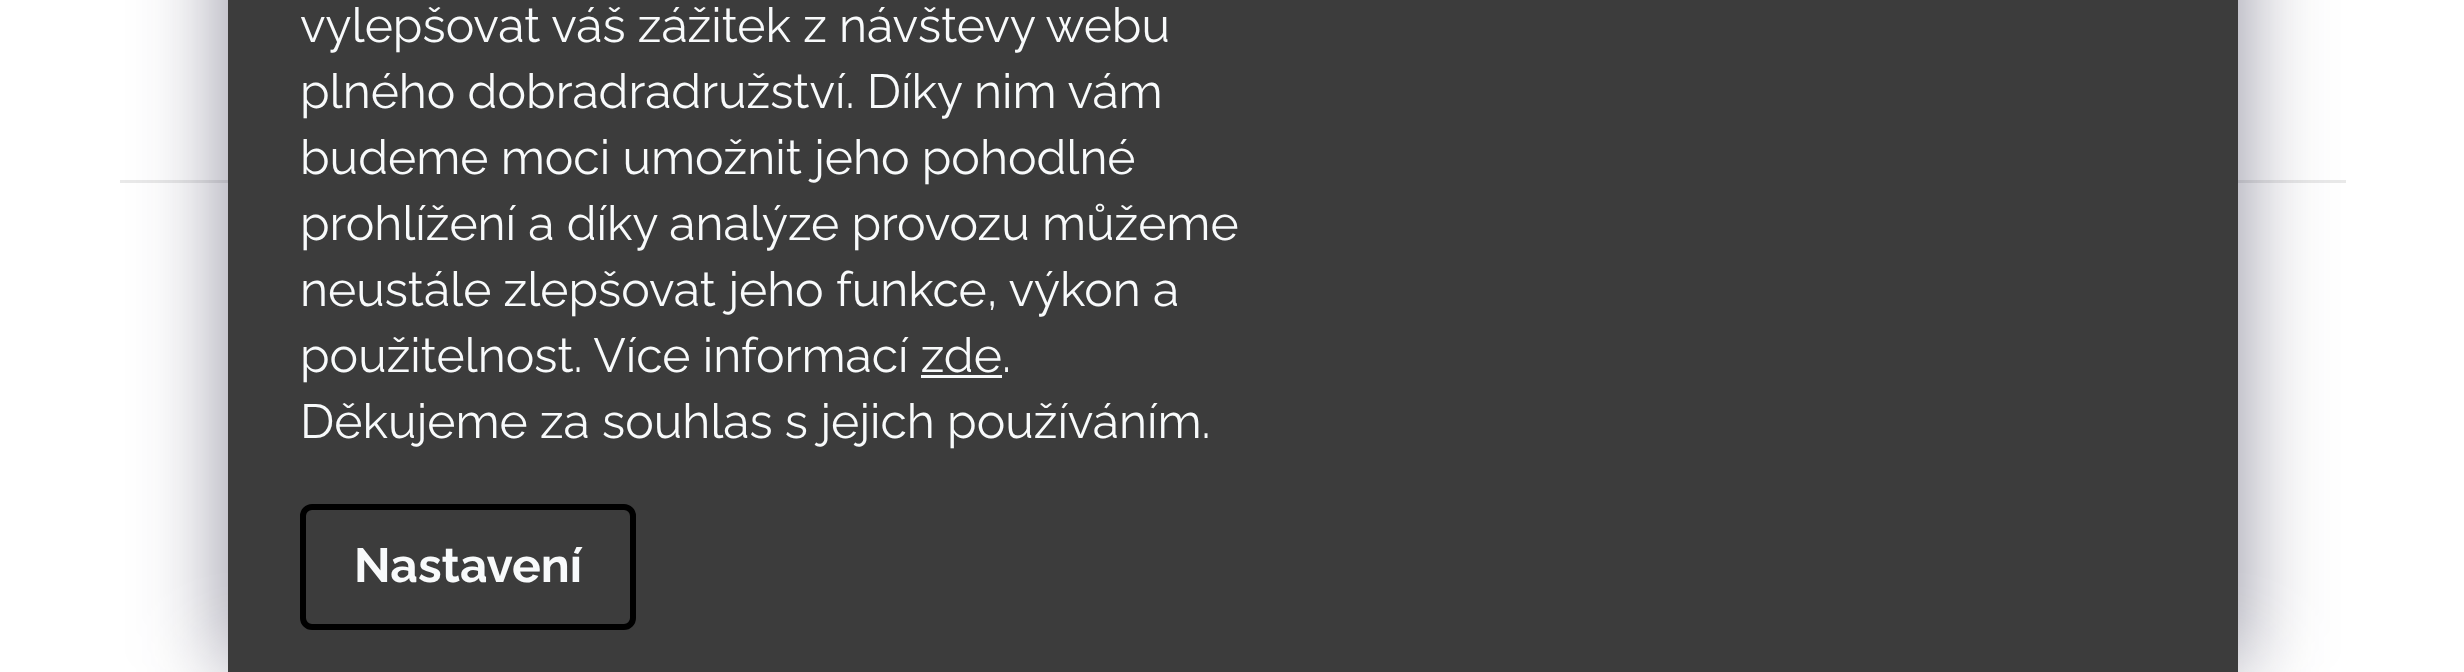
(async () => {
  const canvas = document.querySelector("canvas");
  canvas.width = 2464;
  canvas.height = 672;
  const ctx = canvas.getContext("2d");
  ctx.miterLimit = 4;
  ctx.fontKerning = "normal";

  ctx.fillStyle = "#ffffff";
  ctx.fillRect(0, 0, 2464, 672);
  ctx.fillStyle = "#e9e9e9";
  ctx.fillRect(120, 180, 2226, 3);
  ctx.fillStyle = "rgba(27, 25, 57, 0.5)";
  ctx.filter = "blur(45px)";
  ctx.beginPath();
  ctx.roundRect(228, -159, 2010, 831, 24);
  ctx.fill();
  ctx.filter = "none";
  ctx.fillStyle = "#3c3c3c";
  ctx.fillRect(228, 0, 2010, 672);
  ctx.fillStyle = "#f8fafb";
  ctx.fillRect(921, 375, 81, 3);
  ctx.beginPath();
  ctx.roundRect(303, 507, 330, 120, 9);
  ctx.strokeStyle = "#000000";
  ctx.lineWidth = 6;
  ctx.stroke();
  ctx.font = "48px Raleway";
  for (const [text, x, y] of [
    ["vylepšovat váš zážitek z návštevy webu", 300, 42],
    ["plného dobradradružství. Díky nim vám", 300, 108],
    ["budeme moci umožnit jeho pohodlné", 300, 174],
    ["prohlížení a díky analýze provozu můžeme", 300, 240],
    ["neustále zlepšovat jeho funkce, výkon a", 300, 306],
    ["použitelnost. Více informací zde.", 300, 372],
    ["Děkujeme za souhlas s jejich používáním.", 300, 438],
  ]) {
    ctx.fillText(text, x, y);
  }
  ctx.font = "bold 48px Raleway";
  ctx.fillText("Nastavení", 354, 582);
})();
